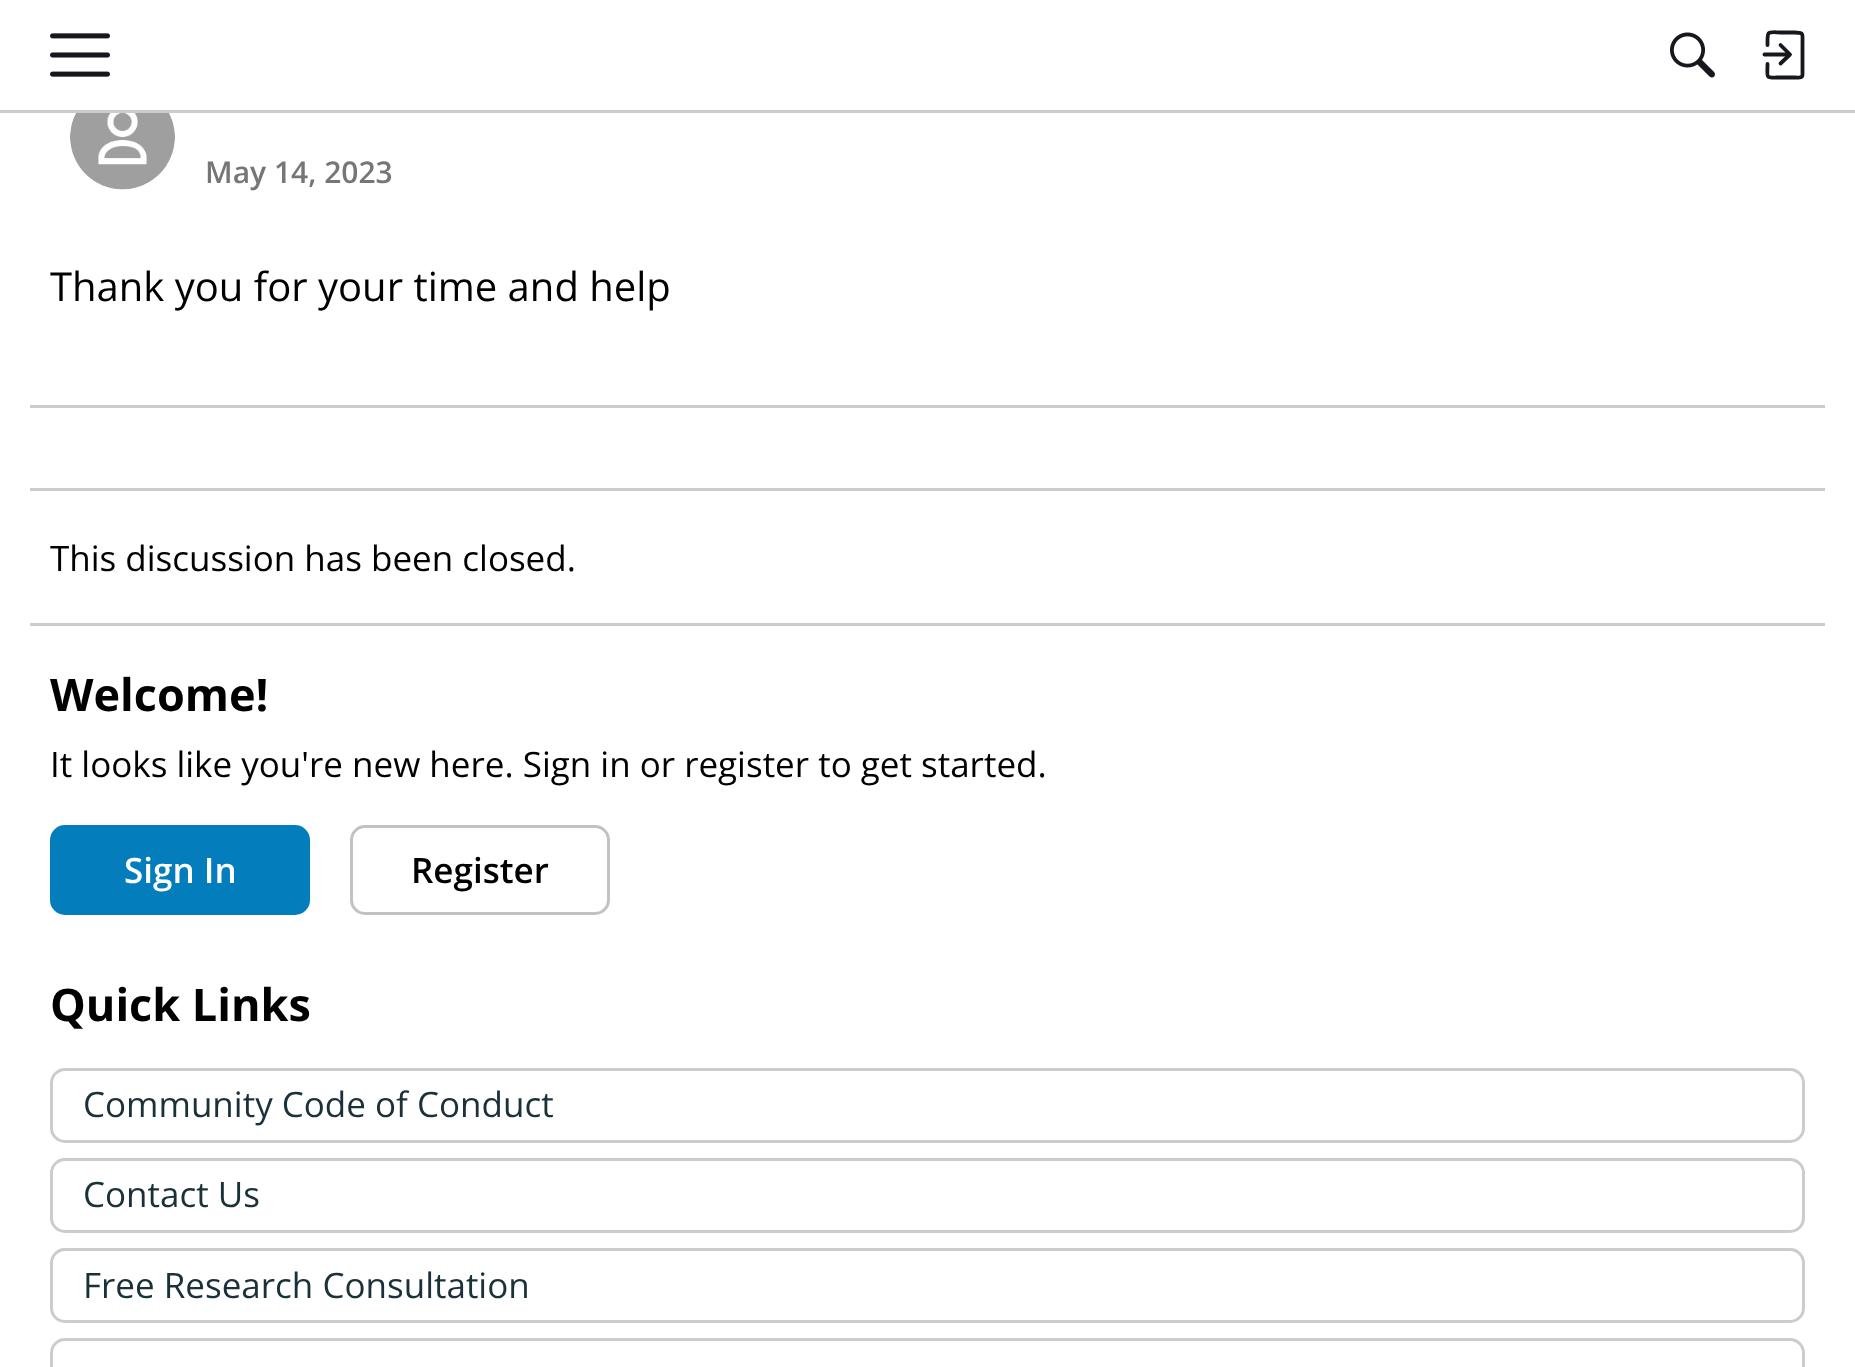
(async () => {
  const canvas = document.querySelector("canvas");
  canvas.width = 1855;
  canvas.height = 1367;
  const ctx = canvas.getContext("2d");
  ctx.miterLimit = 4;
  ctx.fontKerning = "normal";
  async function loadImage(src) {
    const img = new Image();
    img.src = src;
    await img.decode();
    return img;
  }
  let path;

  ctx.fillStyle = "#ffffff";
  ctx.fillRect(0, 0, 1855, 1367);
  ctx.fillStyle = "#cccccc";
  ctx.fillRect(0, 110, 1855, 3);
  ctx.drawImage(await loadImage("img/1.png"), 50, 33, 60, 44);
  ctx.drawImage(await loadImage("img/2.png"), 1670, 32, 45, 46);
  path = new Path2D("M1780.5 63.5L1790 54.5L1780.5 45");
  ctx.strokeStyle = "#17171e";
  ctx.lineWidth = 3.8;
  ctx.lineCap = "round";
  ctx.lineJoin = "round";
  ctx.stroke(path);
  path = new Path2D("M1789 54.5H1764.5");
  ctx.lineJoin = "miter";
  ctx.stroke(path);
  path = new Path2D("M1767.5 45C1767.5 29 1766.5 32.5 1785 32.5H1794.5C1804 32.5 1802.5 33.5 1802.5 43V74.5C1802.5 78.5 1798.5 77.5 1795.5 77.5H1780.5C1764.5 77.5 1767.5 79 1767.5 64");
  ctx.lineJoin = "round";
  ctx.stroke(path);
  ctx.drawImage(await loadImage("img/3.png"), 70, 113, 105, 77);
  for (const [x, y, w, h, color] of [
    [30, 405, 1795, 3, "#cccccc"],
    [30, 488, 1795, 3, "#cccccc"],
    [30, 623, 1795, 3, "#cccccc"],
  ]) {
    ctx.fillStyle = color;
    ctx.fillRect(x, y, w, h);
  }
  ctx.fillStyle = "#037dbc";
  ctx.beginPath();
  ctx.roundRect(51.5, 826.5, 257, 87, 13.5);
  ctx.fill();
  ctx.strokeStyle = "#037dbc";
  ctx.lineWidth = 3;
  ctx.lineJoin = "miter";
  ctx.stroke();
  ctx.beginPath();
  ctx.roundRect(351.5, 826.5, 257, 87, 13.5);
  ctx.strokeStyle = "#c2c2c2";
  ctx.stroke();
  ctx.beginPath();
  ctx.roundRect(51.5, 1069.5, 1752, 72, 13.5);
  ctx.strokeStyle = "#cccccc";
  ctx.stroke();
  ctx.beginPath();
  ctx.roundRect(51.5, 1159.5, 1752, 72, 13.5);
  ctx.stroke();
  ctx.beginPath();
  ctx.roundRect(51.5, 1249.5, 1752, 72, 13.5);
  ctx.stroke();
  ctx.beginPath();
  ctx.roundRect(51.5, 1339.5, 1752, 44, 13.5);
  ctx.stroke();
  ctx.font = "600 30px Open Sans";
  ctx.fillStyle = "#767676";
  ctx.fillText("May 14, 2023", 205, 183);
  ctx.font = "40px Open Sans";
  ctx.fillStyle = "#000000";
  ctx.fillText("Thank you for your time and help", 50, 301);
  ctx.font = "35px Open Sans";
  ctx.fillText("This discussion has been closed.", 50, 571);
  ctx.font = "bold 45px Open Sans";
  ctx.fillText("Welcome!", 50, 711);
  ctx.font = "35px Open Sans";
  ctx.fillText("It looks like you're new here. Sign in or register to get started.", 50, 777);
  ctx.font = "600 35px Open Sans";
  ctx.fillStyle = "#ffffff";
  ctx.fillText("Sign In", 124, 883);
  ctx.fillStyle = "#000000";
  ctx.fillText("Register", 411, 883);
  ctx.font = "bold 45px Open Sans";
  ctx.fillText("Quick Links", 50, 1021);
  ctx.font = "35px Open Sans";
  ctx.fillStyle = "#1b3139";
  for (const [text, x, y] of [
    ["Community Code of Conduct", 83, 1117],
    ["Contact Us", 83, 1207],
    ["Free Research Consultation", 83, 1298],
  ]) {
    ctx.fillText(text, x, y);
  }
})();
